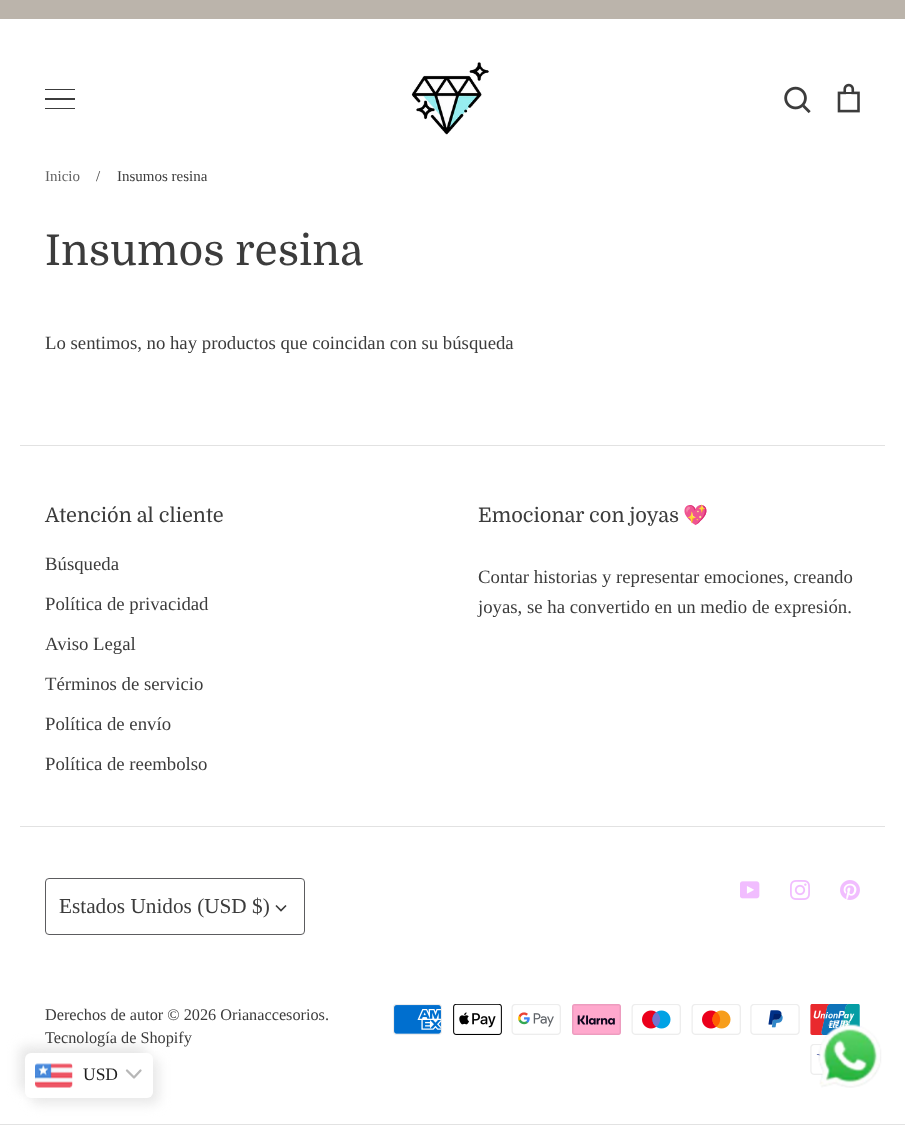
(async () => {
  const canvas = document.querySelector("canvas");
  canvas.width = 905;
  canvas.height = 1125;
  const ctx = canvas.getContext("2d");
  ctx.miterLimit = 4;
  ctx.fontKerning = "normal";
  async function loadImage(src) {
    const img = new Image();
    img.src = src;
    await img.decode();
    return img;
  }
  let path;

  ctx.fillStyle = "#ffffff";
  ctx.fillRect(0, 0, 905, 1125);
  for (const [x, y, w, h, color] of [
    [0, 0, 905, 19, "#bbb4ab"],
    [45, 89, 30, 1, "#3c3c3c"],
    [45, 98, 30, 2, "#3c3c3c"],
    [45, 108, 30, 1, "#3c3c3c"],
  ]) {
    ctx.fillStyle = color;
    ctx.fillRect(x, y, w, h);
  }
  ctx.drawImage(await loadImage("img/1.png"), 411, 62, 78, 73);
  ctx.drawImage(await loadImage("img/2.png"), 784, 86, 27, 28);
  ctx.drawImage(await loadImage("img/3.png"), 837, 83, 23, 30);
  for (const [x, y, w, h, color] of [
    [0, 1124, 905, 1, "#e2e2e2"],
    [20, 445, 865, 1, "#e2e2e2"],
    [20, 826, 865, 1, "#e2e2e2"],
  ]) {
    ctx.fillStyle = color;
    ctx.fillRect(x, y, w, h);
  }
  ctx.drawImage(await loadImage("img/4.png"), 740, 881, 20, 18);
  ctx.drawImage(await loadImage("img/5.png"), 790, 880, 20, 20);
  ctx.drawImage(await loadImage("img/6.png"), 840, 880, 20, 20);
  ctx.beginPath();
  ctx.roundRect(45.5, 878.5, 259, 56, 3.5);
  ctx.strokeStyle = "#5c5c5f";
  ctx.stroke();
  path = new Path2D("M276 905.5L281 910.5L286 905.5");
  ctx.strokeStyle = "#3c3c3c";
  ctx.lineWidth = 1.7;
  ctx.stroke(path);
  ctx.drawImage(await loadImage("img/7.png"), 393, 1004, 49, 31);
  ctx.drawImage(await loadImage("img/8.png"), 453, 1004, 49, 31);
  ctx.drawImage(await loadImage("img/9.png"), 511, 1004, 50, 31);
  ctx.drawImage(await loadImage("img/10.png"), 572, 1004, 49, 31);
  ctx.drawImage(await loadImage("img/11.png"), 631, 1004, 50, 31);
  ctx.drawImage(await loadImage("img/12.png"), 691, 1004, 50, 31);
  ctx.drawImage(await loadImage("img/13.png"), 750, 1004, 50, 31);
  ctx.drawImage(await loadImage("img/14.png"), 810, 1004, 50, 31);
  ctx.drawImage(await loadImage("img/15.png"), 810, 1044, 15, 31);
  ctx.fillStyle = "#e8e8e8";
  ctx.filter = "blur(6px)";
  ctx.beginPath();
  ctx.roundRect(19, 1046, 127, 45, 6);
  ctx.fill();
  ctx.filter = "none";
  ctx.filter = "blur(6px)";
  ctx.beginPath();
  ctx.roundRect(31, 1059, 128, 45, 6);
  ctx.fill();
  ctx.filter = "none";
  ctx.fillStyle = "#ffffff";
  ctx.beginPath();
  ctx.roundRect(25, 1053, 128, 45, 6);
  ctx.fill();
  ctx.drawImage(await loadImage("img/16.png"), 35, 1063, 38, 25);
  path = new Path2D("M127 1070.5L134 1077.5L140.5 1070.5");
  ctx.strokeStyle = "#b7b7b7";
  ctx.lineWidth = 2.3;
  ctx.lineCap = "round";
  ctx.lineJoin = "round";
  ctx.stroke(path);
  ctx.drawImage(await loadImage("img/17.png"), 818, 1024, 64, 64);
  ctx.font = "15px Liberation Serif";
  ctx.fillStyle = "#636363";
  ctx.fillText("Inicio", 45, 181);
  ctx.fillStyle = "#3c3c3c";
  ctx.fillText("/", 96, 181);
  ctx.fillText("Insumos resina", 117, 181);
  ctx.font = "42.5px Domine";
  ctx.fillText("Insumos resina", 45, 265);
  ctx.font = "18.75px Liberation Serif";
  ctx.fillText("Lo sentimos, no hay productos que coincidan con su búsqueda", 45, 349);
  ctx.font = "20px Domine";
  ctx.fillText("Atención al cliente", 45, 522);
  ctx.font = "18.75px Liberation Serif";
  for (const [text, x, y] of [
    ["Búsqueda", 45, 570],
    ["Política de privacidad", 45, 610],
    ["Aviso Legal", 45, 650],
    ["Términos de servicio", 45, 690],
    ["Política de envío", 45, 730],
    ["Política de reembolso", 45, 770],
  ]) {
    ctx.fillText(text, x, y);
  }
  ctx.font = "20px Domine";
  ctx.fillText("Emocionar con joyas", 478, 522);
  ctx.font = "20px Noto Color Emoji";
  ctx.fillText("💖", 683, 522);
  ctx.font = "18.75px Liberation Serif";
  ctx.fillText("Contar historias y representar emociones, creando", 478, 583);
  ctx.fillText("joyas, se ha convertido en un medio de expresión.", 478, 613);
  ctx.font = "21.25px Liberation Serif";
  ctx.fillText("Estados Unidos (USD $)", 59, 913);
  ctx.font = "16.25px Liberation Serif";
  ctx.fillText("Derechos de autor © 2026 Orianaccesorios.", 45, 1020);
  ctx.fillText("Tecnología de Shopify", 45, 1043);
  ctx.font = "17.5px Liberation Serif";
  ctx.fillStyle = "#1e1e1e";
  ctx.fillText("USD", 83, 1080);
})();
